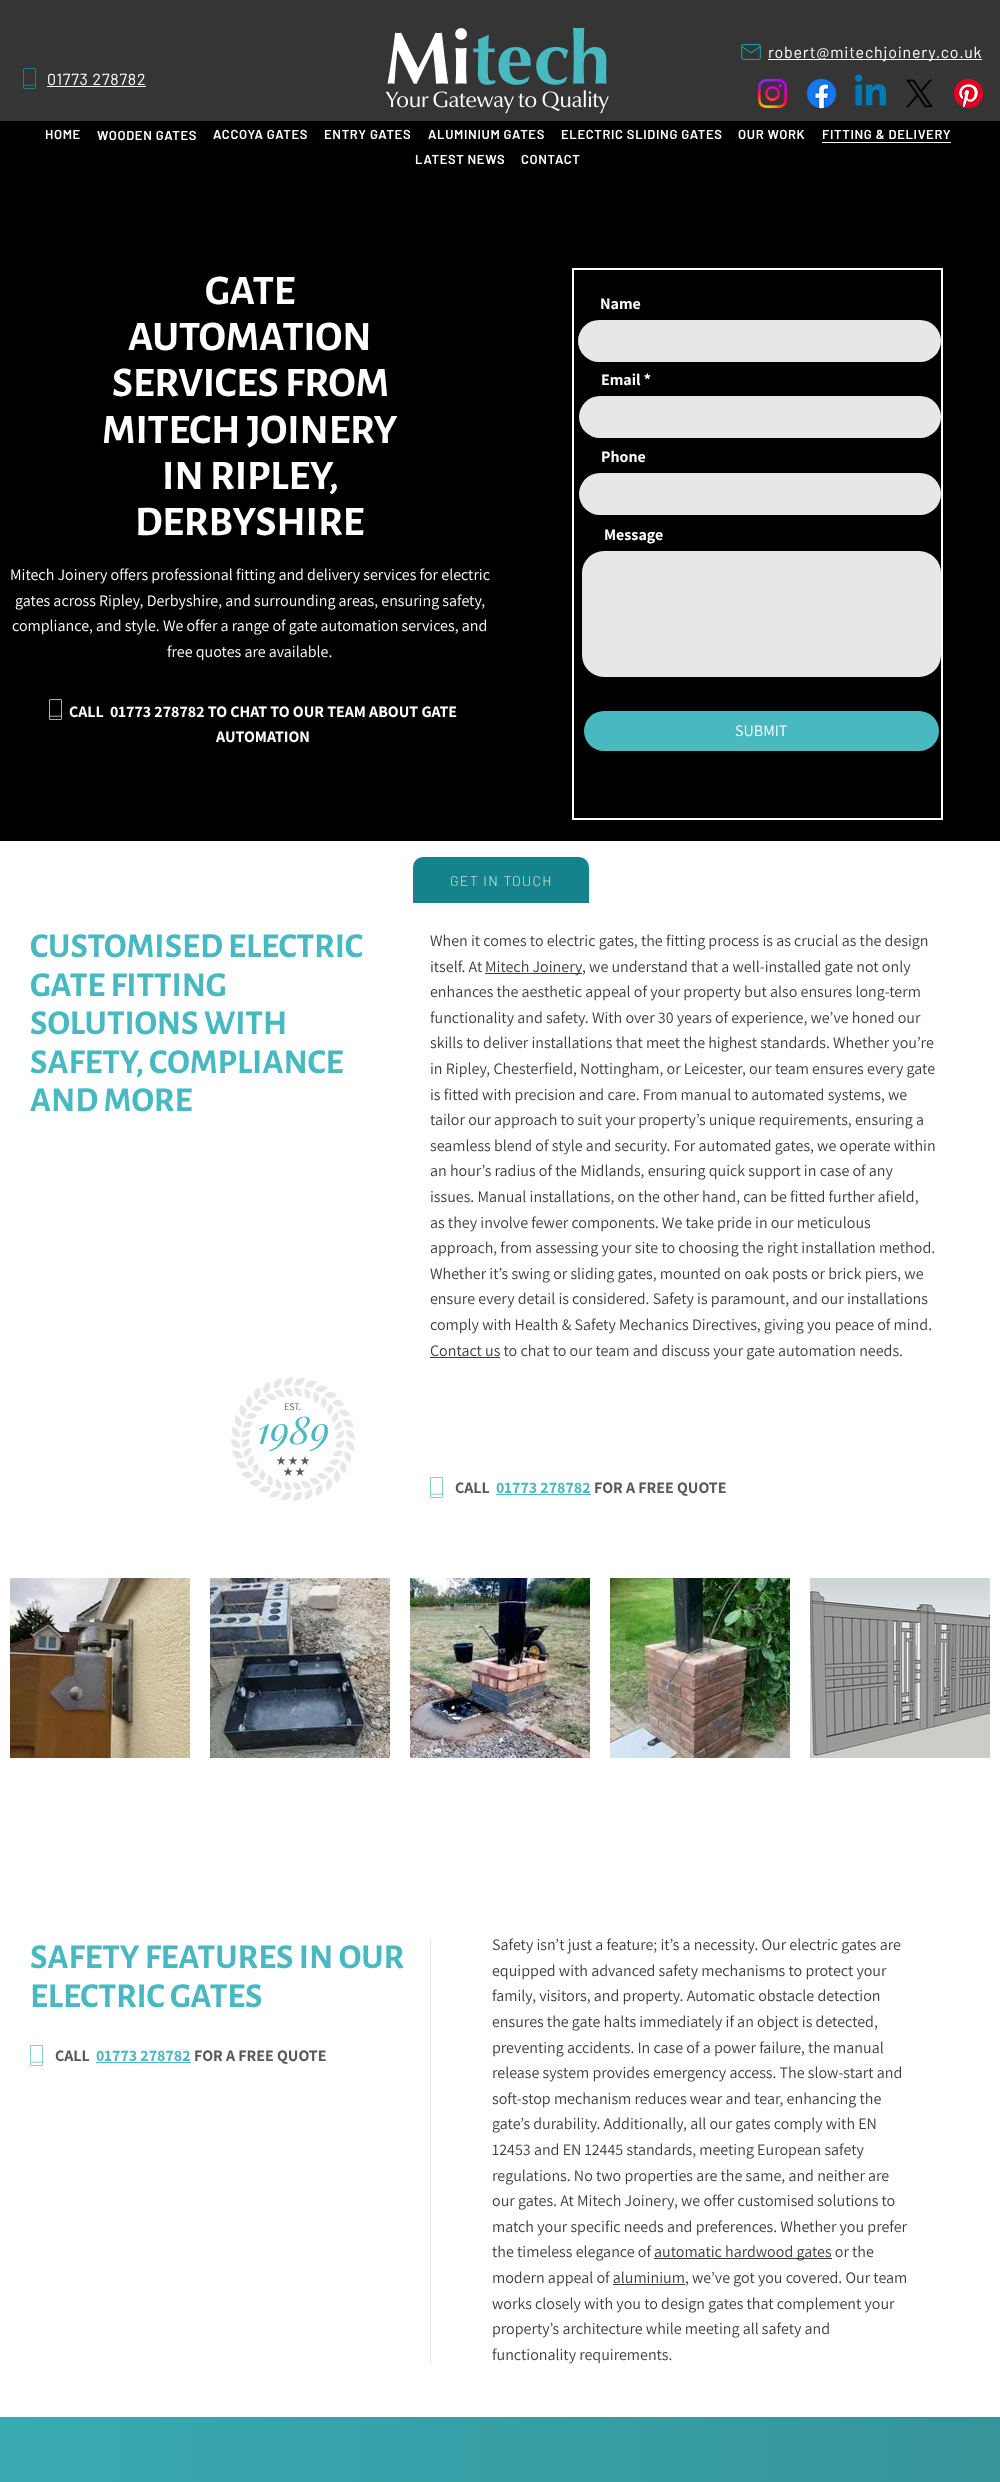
(async () => {
  const canvas = document.querySelector("canvas");
  canvas.width = 1000;
  canvas.height = 2482;
  const ctx = canvas.getContext("2d");
  ctx.miterLimit = 4;
  ctx.fontKerning = "normal";
  async function loadImage(src) {
    const img = new Image();
    img.src = src;
    await img.decode();
    return img;
  }
  let gradient;

  ctx.fillStyle = "#ffffff";
  ctx.fillRect(0, 0, 1000, 2482);
  ctx.fillStyle = "#353535";
  ctx.fillRect(0, 0, 1000, 121);
  ctx.drawImage(await loadImage("img/1.png"), 385, 27, 224, 87);
  ctx.drawImage(await loadImage("img/2.png"), 741, 44, 20, 16);
  ctx.fillStyle = "#ffffff";
  ctx.fillRect(768, 59, 214, 1);
  ctx.drawImage(await loadImage("img/3.png"), 23, 68, 13, 21);
  ctx.fillRect(47, 86, 99, 1);
  ctx.drawImage(await loadImage("img/4.png"), 757, 78, 31, 31);
  ctx.drawImage(await loadImage("img/5.png"), 806, 78, 31, 31);
  ctx.drawImage(await loadImage("img/6.png"), 854, 74, 33, 32);
  ctx.drawImage(await loadImage("img/7.png"), 906, 79, 27, 29);
  ctx.drawImage(await loadImage("img/8.png"), 953, 78, 31, 31);
  ctx.fillStyle = "#000000";
  ctx.fillRect(0, 121, 1000, 720);
  ctx.fillStyle = "#ffffff";
  ctx.fillRect(822, 142, 129, 1);
  ctx.drawImage(await loadImage("img/9.png"), 49, 699, 13, 21);
  ctx.strokeStyle = "#ffffff";
  ctx.lineWidth = 2;
  ctx.strokeRect(573, 269, 369, 550);
  ctx.fillStyle = "#e8e6e6";
  ctx.beginPath();
  ctx.roundRect(578, 320, 363, 42, 21);
  ctx.fill();
  ctx.beginPath();
  ctx.roundRect(579, 396, 362, 42, 21);
  ctx.fill();
  ctx.beginPath();
  ctx.roundRect(579, 473, 362, 42, 21);
  ctx.fill();
  ctx.beginPath();
  ctx.roundRect(582, 551, 359, 126, 22);
  ctx.fill();
  ctx.fillStyle = "#48b8c1";
  ctx.beginPath();
  ctx.roundRect(584, 711, 355, 40, 20);
  ctx.fill();
  ctx.fillStyle = "#15838b";
  ctx.beginPath();
  ctx.roundRect(413, 857, 176, 46, [10, 10, 0, 0]);
  ctx.fill();
  ctx.fillStyle = "#3c3c3c";
  ctx.fillRect(485, 973, 97, 1);
  ctx.fillRect(430, 1357, 70, 1);
  ctx.drawImage(await loadImage("img/10.png"), 231, 1377, 124, 124);
  ctx.drawImage(await loadImage("img/11.png"), 276, 1456, 34, 9);
  ctx.drawImage(await loadImage("img/12.png"), 283, 1467, 22, 9);
  ctx.drawImage(await loadImage("img/13.png"), 430, 1477, 13, 21);
  ctx.fillStyle = "#48b8c1";
  ctx.fillRect(496, 1494, 95, 1);
  ctx.drawImage(await loadImage("img/14.png"), 10, 1578, 180, 180);
  ctx.drawImage(await loadImage("img/15.png"), 210, 1578, 180, 180);
  ctx.drawImage(await loadImage("img/16.png"), 410, 1578, 180, 180);
  ctx.drawImage(await loadImage("img/17.png"), 610, 1578, 180, 180);
  ctx.drawImage(await loadImage("img/18.png"), 810, 1578, 180, 180);
  for (const [x, y, w, h, color] of [
    [430, 1939, 1, 425, "#e8e6e6"],
    [654, 2258, 178, 1, "#3c3c3c"],
    [613, 2284, 72, 1, "#3c3c3c"],
  ]) {
    ctx.fillStyle = color;
    ctx.fillRect(x, y, w, h);
  }
  ctx.drawImage(await loadImage("img/13.png"), 30, 2045, 13, 21);
  ctx.fillStyle = "#48b8c1";
  ctx.fillRect(96, 2062, 95, 1);
  gradient = ctx.createLinearGradient(0, 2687, 1000, 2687);
  gradient.addColorStop(0, "#39aab2");
  gradient.addColorStop(0.99, "#36949b");
  ctx.fillStyle = gradient;
  ctx.fillRect(0, 2417, 1000, 65);
  ctx.letterSpacing = "0.8px";
  ctx.font = "16px Barlow";
  ctx.fillStyle = "#ffffff";
  ctx.fillText("robert@mitechjoinery.co.uk", 768, 58);
  ctx.fillText("01773 278782", 47, 85);
  ctx.letterSpacing = "0.65px";
  ctx.font = "600 13px Barlow";
  for (const [text, x, y] of [
    ["HOME", 45, 139],
    ["WOODEN GATES", 97, 140],
    ["ACCOYA GATES", 213, 139],
    ["ENTRY GATES", 324, 139],
    ["ALUMINIUM GATES", 428, 139],
    ["ELECTRIC SLIDING GATES", 561, 139],
    ["OUR WORK", 738, 139],
    ["FITTING & DELIVERY", 822, 139],
    ["LATEST NEWS", 415, 164],
    ["CONTACT", 521, 164],
  ]) {
    ctx.fillText(text, x, y);
  }
  ctx.letterSpacing = "0px";
  ctx.font = "bold 42px Alegreya Sans";
  for (const [text, x, y] of [
    ["GATE", 205, 304],
    ["AUTOMATION", 128, 350],
    ["SERVICES FROM", 112, 396],
    ["MITECH JOINERY", 102, 443],
    ["IN RIPLEY,", 162, 489],
    ["DERBYSHIRE", 135, 535],
  ]) {
    ctx.fillText(text, x, y);
  }
  ctx.font = "16px Assistant";
  for (const [text, x, y] of [
    ["Mitech Joinery offers professional fitting and delivery services for electric", 10, 580],
    ["gates across Ripley, Derbyshire, and surrounding areas, ensuring safety,", 15, 606],
    ["compliance, and style. We offer a range of gate automation services, and", 12, 631],
    ["free quotes are available.", 167, 657],
  ]) {
    ctx.fillText(text, x, y);
  }
  ctx.font = "bold 16px Assistant";
  for (const [text, x, y] of [
    ["CALL", 69, 717],
    ["01773 278782 TO CHAT TO OUR TEAM ABOUT GATE", 110, 717],
    ["AUTOMATION", 216, 742],
  ]) {
    ctx.fillText(text, x, y);
  }
  ctx.font = "bold 16px 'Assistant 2'";
  for (const [text, x, y] of [
    ["Name", 600, 309],
    ["Email *", 601, 385],
    ["Phone", 601, 462],
    ["Message", 604, 540],
  ]) {
    ctx.fillText(text, x, y);
  }
  ctx.font = "16px 'Assistant 2'";
  ctx.fillText("SUBMIT", 735, 736);
  ctx.letterSpacing = "1.4px";
  ctx.font = "200 14px Barlow";
  ctx.fillText("GET IN TOUCH", 450, 886);
  ctx.letterSpacing = "0px";
  ctx.font = "bold 35px Alegreya Sans";
  ctx.fillStyle = "#48b8c1";
  for (const [text, x, y] of [
    ["CUSTOMISED ELECTRIC", 30, 957],
    ["GATE FITTING", 30, 996],
    ["SOLUTIONS WITH", 30, 1034],
    ["SAFETY, COMPLIANCE", 30, 1073],
    ["AND MORE", 30, 1111],
  ]) {
    ctx.fillText(text, x, y);
  }
  ctx.font = "16px 'Assistant 2'";
  ctx.fillStyle = "#3c3c3c";
  for (const [text, x, y] of [
    ["When it comes to electric gates, the fitting process is as crucial as the design", 430, 946],
    ["itself. At", 430, 972],
    ["Mitech Joinery", 485, 972],
    [", we understand that a well-installed gate not only", 582, 972],
    ["enhances the aesthetic appeal of your property but also ensures long-term", 430, 997],
    ["functionality and safety. With over 30 years of experience, we’ve honed our", 430, 1023],
    ["skills to deliver installations that meet the highest standards. Whether you’re", 430, 1048],
    ["in Ripley, Chesterfield, Nottingham, or Leicester, our team ensures every gate", 430, 1074],
    ["is fitted with precision and care. From manual to automated systems, we", 430, 1100],
    ["tailor our approach to suit your property’s unique requirements, ensuring a", 430, 1125],
    ["seamless blend of style and security. For automated gates, we operate within", 430, 1151],
    ["an hour’s radius of the Midlands, ensuring quick support in case of any", 430, 1176],
    ["issues. Manual installations, on the other hand, can be fitted further afield,", 430, 1202],
    ["as they involve fewer components. We take pride in our meticulous", 430, 1228],
    ["approach, from assessing your site to choosing the right installation method.", 430, 1253],
    ["Whether it’s swing or sliding gates, mounted on oak posts or brick piers, we", 430, 1279],
    ["ensure every detail is considered. Safety is paramount, and our installations", 430, 1304],
    ["comply with Health & Safety Mechanics Directives, giving you peace of mind.", 430, 1330],
    ["Contact us to chat to our team and discuss your gate automation needs.", 430, 1356],
  ]) {
    ctx.fillText(text, x, y);
  }
  ctx.font = "10px 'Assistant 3'";
  ctx.fillStyle = "#595959";
  ctx.fillText("EST.", 284, 1410);
  ctx.font = "italic 38px Playfair Display";
  ctx.fillStyle = "#48b8c1";
  ctx.fillText("1989", 257, 1444);
  ctx.font = "bold 16px Assistant";
  ctx.fillStyle = "#595959";
  ctx.fillText("CALL", 455, 1493);
  ctx.fillStyle = "#48b8c1";
  ctx.fillText("01773 278782", 496, 1493);
  ctx.fillStyle = "#595959";
  ctx.fillText("FOR A FREE QUOTE", 594, 1493);
  ctx.font = "bold 35px Alegreya Sans";
  ctx.fillStyle = "#48b8c1";
  ctx.fillText("SAFETY FEATURES IN OUR", 30, 1968);
  ctx.fillText("ELECTRIC GATES", 30, 2007);
  ctx.font = "16px 'Assistant 2'";
  ctx.fillStyle = "#3c3c3c";
  for (const [text, x, y] of [
    ["Safety isn’t just a feature; it’s a necessity. Our electric gates are", 492, 1950],
    ["equipped with advanced safety mechanisms to protect your", 492, 1976],
    ["family, visitors, and property. Automatic obstacle detection", 492, 2001],
    ["ensures the gate halts immediately if an object is detected,", 492, 2027],
    ["preventing accidents. In case of a power failure, the manual", 492, 2053],
    ["release system provides emergency access. The slow-start and", 492, 2078],
    ["soft-stop mechanism reduces wear and tear, enhancing the", 492, 2104],
    ["gate’s durability. Additionally, all our gates comply with EN", 492, 2129],
    ["12453 and EN 12445 standards, meeting European safety", 492, 2155],
    ["regulations. No two properties are the same, and neither are", 492, 2181],
    ["our gates. At Mitech Joinery, we offer customised solutions to", 492, 2206],
    ["match your specific needs and preferences. Whether you prefer", 492, 2232],
    ["the timeless elegance of", 492, 2257],
    ["automatic hardwood gates or the", 654, 2257],
    ["modern appeal of aluminium, we’ve got you covered. Our team", 492, 2283],
    ["works closely with you to design gates that complement your", 492, 2309],
    ["property’s architecture while meeting all safety and", 492, 2334],
    ["functionality requirements.", 492, 2360],
  ]) {
    ctx.fillText(text, x, y);
  }
  ctx.font = "bold 16px Assistant";
  ctx.fillStyle = "#595959";
  ctx.fillText("CALL", 55, 2061);
  ctx.fillStyle = "#48b8c1";
  ctx.fillText("01773 278782", 96, 2061);
  ctx.fillStyle = "#595959";
  ctx.fillText("FOR A FREE QUOTE", 194, 2061);
})();
